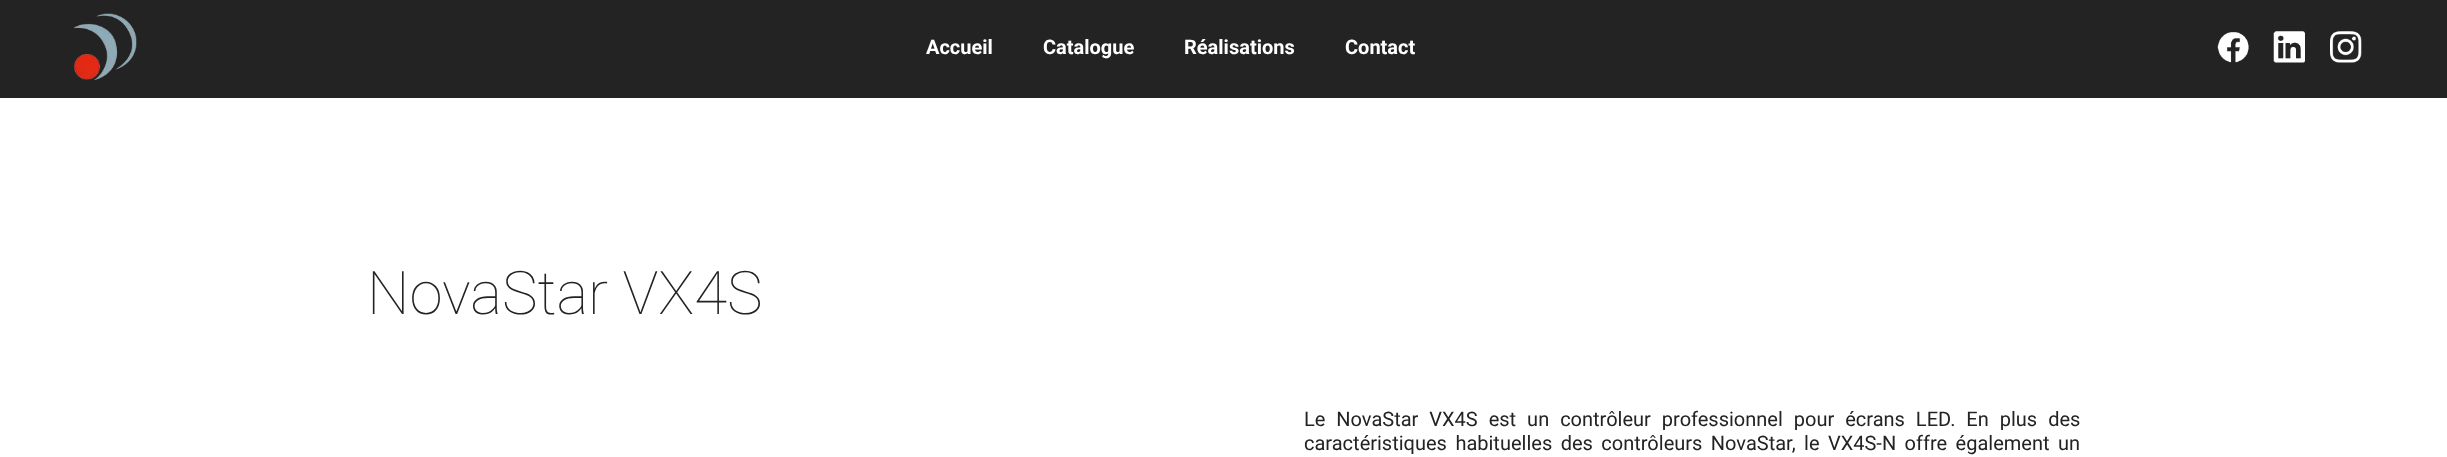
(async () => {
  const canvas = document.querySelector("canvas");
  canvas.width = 2447;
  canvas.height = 457;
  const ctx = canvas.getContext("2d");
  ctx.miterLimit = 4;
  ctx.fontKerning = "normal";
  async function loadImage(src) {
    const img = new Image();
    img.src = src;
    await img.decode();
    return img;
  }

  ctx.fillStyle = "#ffffff";
  ctx.fillRect(0, 0, 2447, 457);
  ctx.fillStyle = "#232323";
  ctx.fillRect(0, 0, 2447, 98);
  ctx.drawImage(await loadImage("img/1.png"), 73, 13, 64, 67);
  ctx.drawImage(await loadImage("img/2.png"), 2217, 32, 32, 31);
  ctx.drawImage(await loadImage("img/3.png"), 2273, 31, 32, 32);
  ctx.drawImage(await loadImage("img/4.png"), 2330, 31, 32, 32);
  ctx.font = "bold 20px Roboto";
  ctx.fillStyle = "#ffffff";
  for (const [text, x, y] of [
    ["Accueil", 926, 54],
    ["Catalogue", 1043, 54],
    ["Réalisations", 1184, 54],
    ["Contact", 1345, 54],
  ]) {
    ctx.fillText(text, x, y);
  }
  ctx.font = "100 60px Roboto";
  ctx.fillStyle = "#232323";
  ctx.fillText("NovaStar VX4S", 367, 314);
  ctx.wordSpacing = "6px";
  ctx.font = "20px Roboto";
  ctx.fillText("Le NovaStar VX4S est un contrôleur professionnel pour écrans LED. En plus des", 1304, 426);
  ctx.wordSpacing = "3.5px";
  ctx.fillText("caractéristiques habituelles des contrôleurs NovaStar, le VX4S-N offre également un", 1304, 450);
})();
